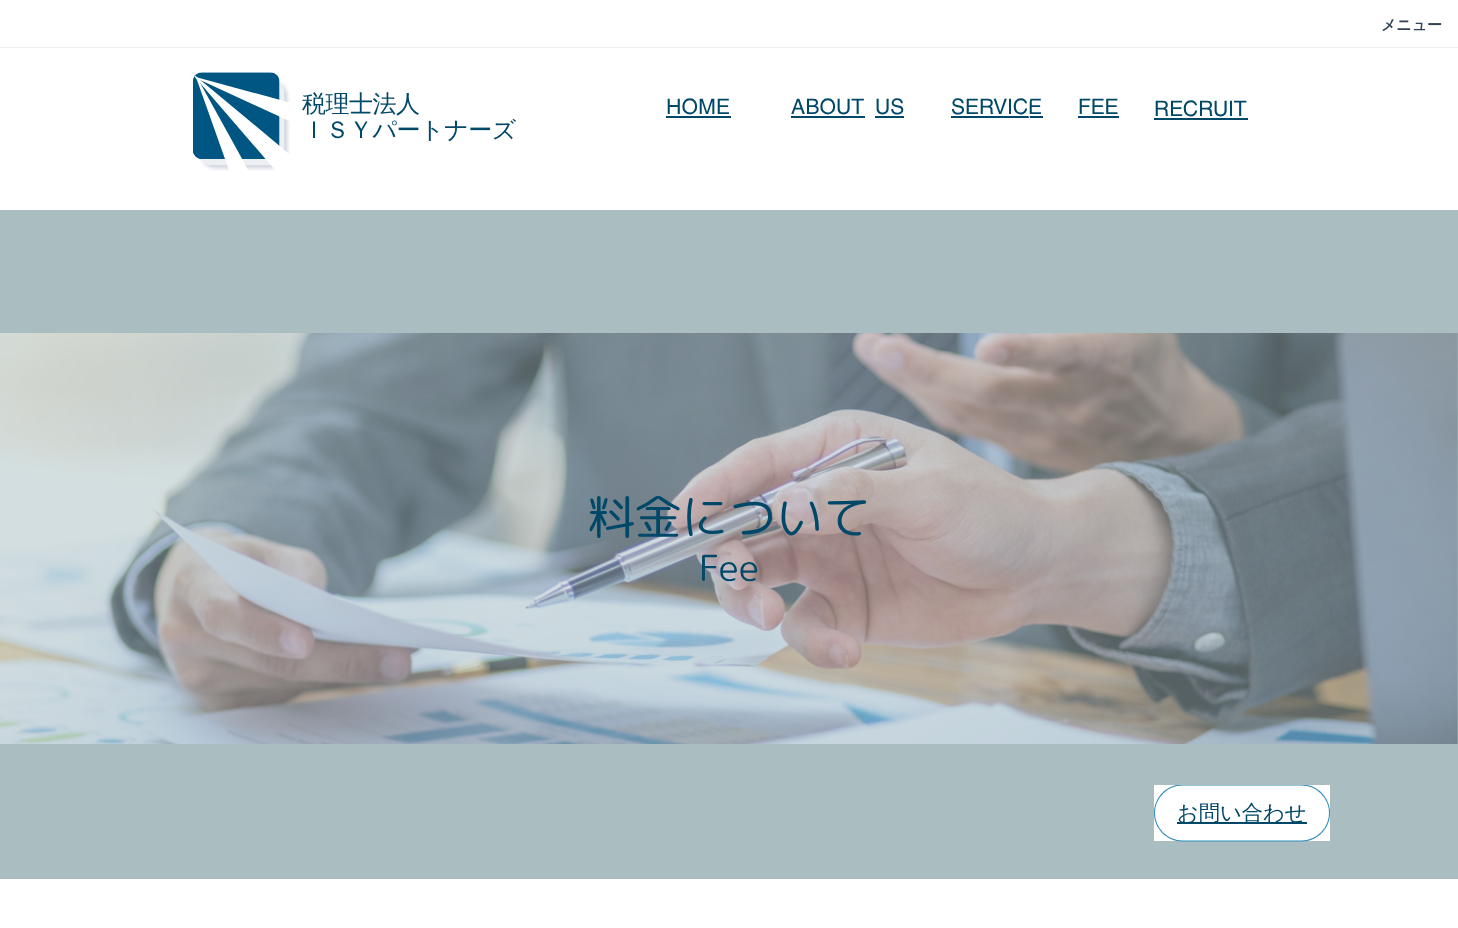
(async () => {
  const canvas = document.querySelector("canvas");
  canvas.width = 1458;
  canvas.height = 928;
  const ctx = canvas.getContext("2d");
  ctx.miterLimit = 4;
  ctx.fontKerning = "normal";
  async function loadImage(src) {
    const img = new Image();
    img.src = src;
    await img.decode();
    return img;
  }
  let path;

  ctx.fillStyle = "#ffffff";
  ctx.fillRect(0, 0, 1458, 928);
  ctx.fillStyle = "#ededed";
  ctx.fillRect(0, 47, 1458, 1);
  ctx.drawImage(await loadImage("img/5.png"), 198, 78, 92, 93);
  ctx.drawImage(await loadImage("img/1.png"), 193, 72, 87, 87);
  ctx.drawImage(await loadImage("img/3.png"), 196, 77, 52, 94);
  ctx.drawImage(await loadImage("img/4.png"), 196, 77, 94, 44);
  ctx.drawImage(await loadImage("img/2.png"), 194, 75, 96, 96);
  for (const [x, y, w, h, color] of [
    [666, 116, 65, 2, "#004868"],
    [791, 116, 74, 2, "#004868"],
    [875, 116, 29, 2, "#004868"],
    [951, 116, 92, 2, "#004868"],
    [0, 210, 1458, 669, "#aabec2"],
  ]) {
    ctx.fillStyle = color;
    ctx.fillRect(x, y, w, h);
  }
  ctx.drawImage(await loadImage("img/6.png"), 0, 333, 1458, 411);
  ctx.fillStyle = "#ffffff";
  ctx.fillRect(1154, 785, 176, 56);
  ctx.save();
  ctx.beginPath();
  ctx.rect(1154, 785, 176, 57);
  ctx.clip();
  path = new Path2D("M1182.5 784.5H1301.5C1317.5 784.5 1330 797.5 1330 813C1330 828.5 1317.5 841.5 1301.5 841.5H1182.5C1166.5 841.5 1154 828.5 1154 813C1154 797.5 1166.5 784.5 1182.5 784.5Z");
  ctx.clip(path);
  path = new Path2D("M1182.5 784.5H1301.5C1317.5 784.5 1330 797.5 1330 813C1330 828.5 1317.5 841.5 1301.5 841.5H1182.5C1166.5 841.5 1154 828.5 1154 813C1154 797.5 1166.5 784.5 1182.5 784.5Z");
  ctx.strokeStyle = "#2d8bba";
  ctx.lineWidth = 2;
  ctx.stroke(path);
  ctx.restore();
  ctx.fillStyle = "#004868";
  ctx.fillRect(1177, 822, 130, 2);
  ctx.font = "bold 15px WenQuanYi Zen Hei";
  ctx.fillStyle = "#304254";
  ctx.fillText("メニュー", 1381, 30);
  ctx.letterSpacing = "-0.5px";
  ctx.font = "500 24px WenQuanYi Zen Hei";
  ctx.fillStyle = "#004868";
  ctx.fillText("税理士法人", 302, 112);
  ctx.fillText("ＩＳＹパートナーズ", 302, 138);
  ctx.letterSpacing = "0px";
  ctx.font = "21.25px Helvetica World";
  for (const [text, x, y] of [
    ["HOME", 666, 114],
    ["ABOUT", 791, 114],
    ["US", 875, 114],
    ["SERVICE", 951, 114],
  ]) {
    ctx.fillText(text, x, y);
  }
  ctx.save();
  ctx.beginPath();
  ctx.rect(1027, 83, 142, 52);
  ctx.clip();
  path = new Path2D("M1053.5 83H1143.5C1158 83 1169.5 95 1169.5 109C1169.5 123.5 1158 135 1143.5 135H1053.5C1039 135 1027.5 123.5 1027.5 109C1027.5 95 1039 83 1053.5 83Z");
  ctx.clip(path);
  path = new Path2D("M1053.5 83H1143.5C1158 83 1169.5 95 1169.5 109C1169.5 123.5 1158 135 1143.5 135H1053.5C1039 135 1027.5 123.5 1027.5 109C1027.5 95 1039 83 1053.5 83Z");
  ctx.strokeStyle = "#ffffff";
  ctx.lineWidth = 2;
  ctx.stroke(path);
  ctx.restore();
  ctx.fillText("FEE", 1078, 114);
  ctx.fillRect(1078, 116, 41, 2);
  ctx.fillText("RECRUIT", 1154, 116);
  ctx.fillRect(1154, 118, 94, 2);
  ctx.font = "47.25px 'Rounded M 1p'";
  ctx.fillText("料金について", 587, 534);
  ctx.font = "36px 'Rounded M 1p'";
  ctx.fillText("Fee", 699, 581);
  ctx.font = "500 21.25px WenQuanYi Zen Hei";
  ctx.fillText("お問い合わせ", 1177, 820);
})();
